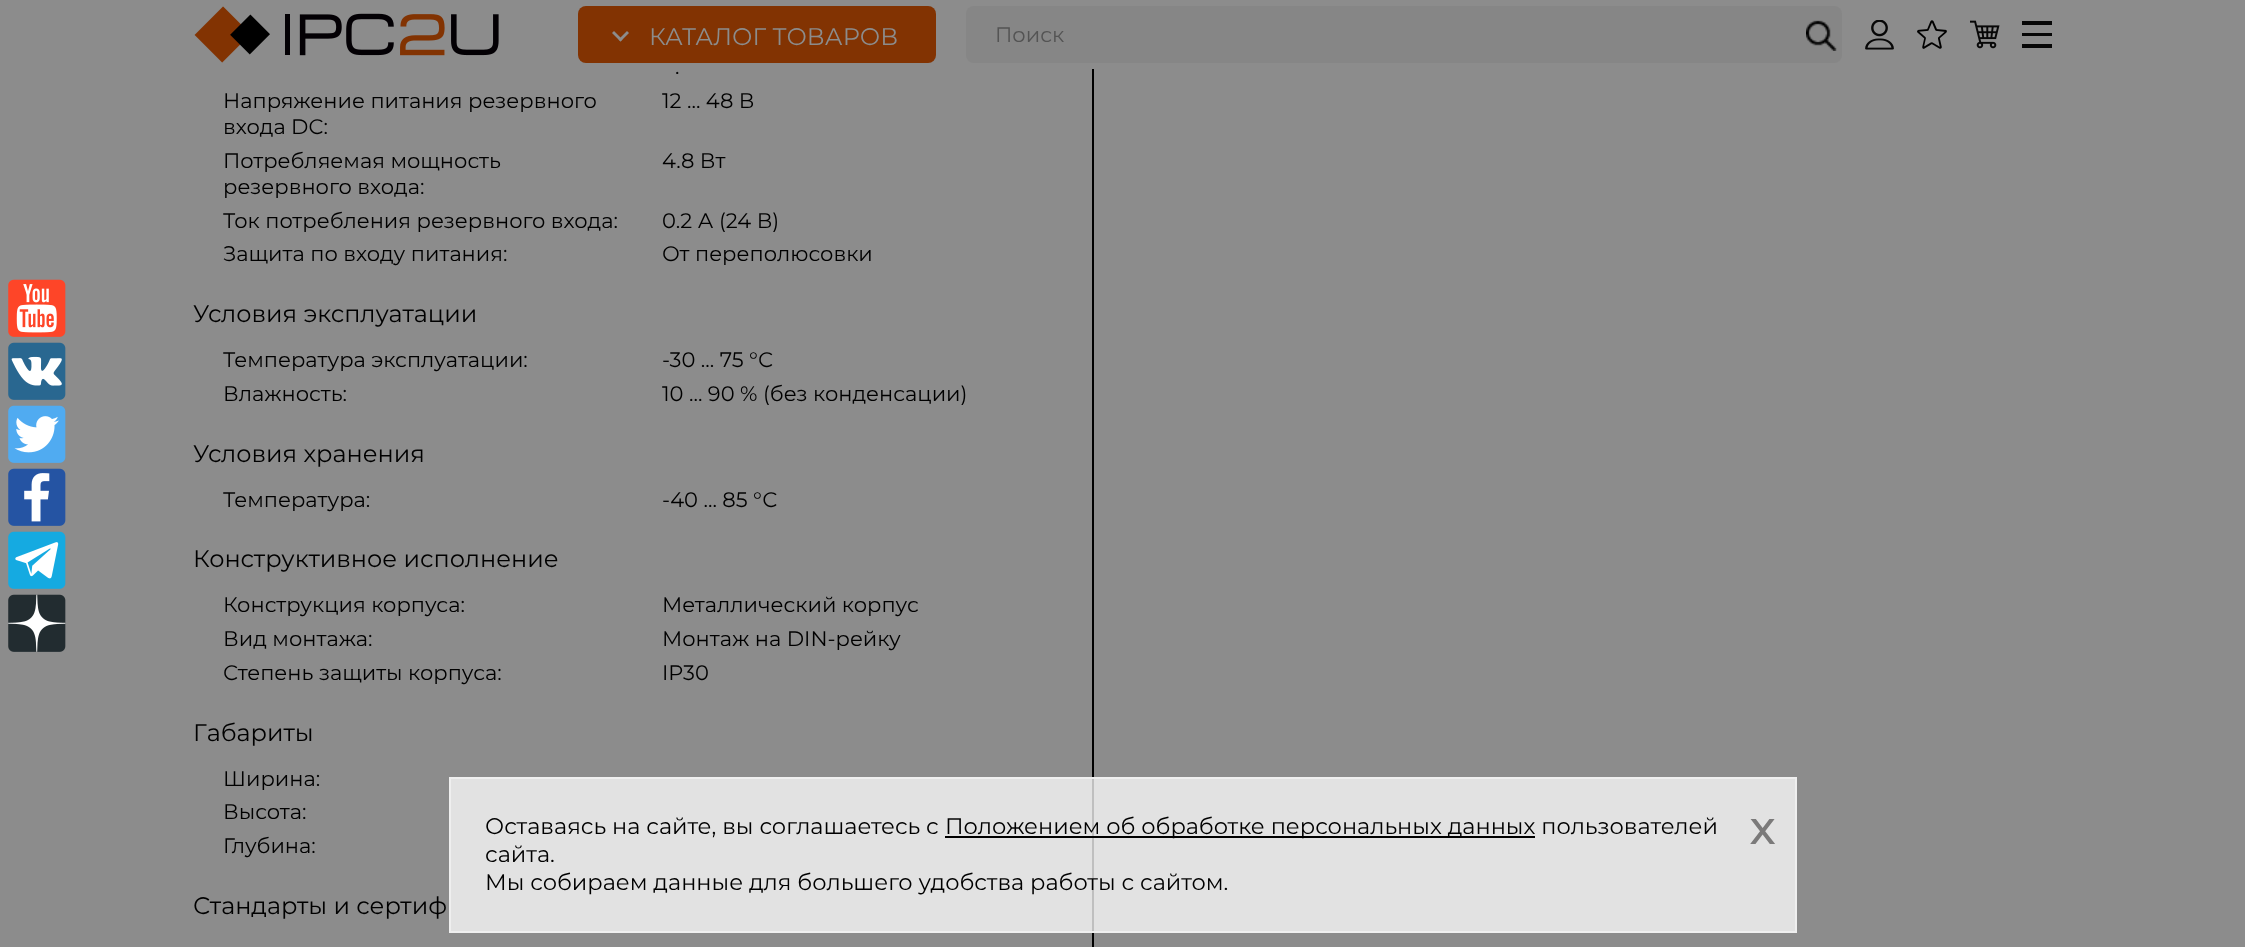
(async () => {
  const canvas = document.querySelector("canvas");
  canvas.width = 2245;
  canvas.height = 947;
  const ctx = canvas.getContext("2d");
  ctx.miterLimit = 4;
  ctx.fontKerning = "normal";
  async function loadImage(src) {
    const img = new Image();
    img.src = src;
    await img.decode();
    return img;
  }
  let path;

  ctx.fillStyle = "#8c8c8c";
  ctx.fillRect(0, 0, 2245, 947);
  ctx.drawImage(await loadImage("img/1.png"), 194, 6, 305, 57);
  ctx.fillStyle = "#823302";
  ctx.beginPath();
  ctx.roundRect(578, 6, 358, 57, 8);
  ctx.fill();
  ctx.fillStyle = "#8c8c8c";
  path = new Path2D("M627 31L629 33L620.5 41.5L618.5 39.5Z");
  ctx.fill(path);
  path = new Path2D("M614 31L622.5 39.5L620.5 41.5L612 33Z");
  ctx.fill(path);
  ctx.fillStyle = "#868686";
  ctx.beginPath();
  ctx.roundRect(966, 6, 876, 57, 8);
  ctx.fill();
  ctx.drawImage(await loadImage("img/2.png"), 1806, 20, 31, 31);
  ctx.drawImage(await loadImage("img/3.png"), 1865, 20, 29, 30);
  ctx.drawImage(await loadImage("img/4.png"), 1917, 20, 30, 29);
  ctx.drawImage(await loadImage("img/5.png"), 1970, 20, 30, 29);
  for (const [x, y, w, h, color] of [
    [2022, 44, 30, 4, "#070707"],
    [2022, 33, 30, 3, "#070707"],
    [2022, 21, 30, 4, "#070707"],
  ]) {
    ctx.fillStyle = color;
    ctx.fillRect(x, y, w, h);
  }
  ctx.drawImage(await loadImage("img/6.png"), 8, 279, 58, 58);
  ctx.drawImage(await loadImage("img/7.png"), 8, 342, 58, 58);
  ctx.drawImage(await loadImage("img/8.png"), 8, 405, 58, 58);
  ctx.drawImage(await loadImage("img/9.png"), 8, 468, 58, 58);
  ctx.drawImage(await loadImage("img/10.png"), 8, 531, 58, 58);
  ctx.drawImage(await loadImage("img/11.png"), 8, 594, 58, 58);
  ctx.fillStyle = "#000000";
  ctx.fillRect(1092, 69, 2, 878);
  ctx.fillStyle = "rgba(255, 255, 255, 0.75)";
  ctx.beginPath();
  ctx.rect(450, 778, 1346, 154);
  ctx.fill();
  ctx.strokeStyle = "#efefef";
  ctx.lineWidth = 2;
  ctx.stroke();
  ctx.fillStyle = "#000000";
  ctx.fillRect(945, 836, 590, 2);
  ctx.font = "24px Montserrat";
  ctx.fillStyle = "#8c8c8c";
  ctx.fillText("КАТАЛОГ ТОВАРОВ", 649, 45);
  ctx.font = "21px Montserrat";
  ctx.fillStyle = "#545454";
  ctx.fillText("Поиск", 995, 42);
  ctx.fillStyle = "#000000";
  for (const [text, x, y] of [
    [".", 675, 74],
    ["Напряжение питания резервного", 223, 108],
    ["входа DC:", 223, 134],
    ["12 ... 48 В", 662, 108],
    ["Потребляемая мощность", 223, 168],
    ["резервного входа:", 223, 194],
    ["4.8 Вт", 662, 168],
    ["Ток потребления резервного входа:", 223, 228],
    ["0.2 А (24 В)", 662, 228],
    ["Защита по входу питания:", 223, 261],
    ["От переполюсовки", 662, 261],
  ]) {
    ctx.fillText(text, x, y);
  }
  ctx.font = "24px Montserrat";
  ctx.fillText("Условия эксплуатации", 193, 322);
  ctx.font = "21px Montserrat";
  for (const [text, x, y] of [
    ["Температура эксплуатации:", 223, 367],
    ["-30 ... 75 °С", 662, 367],
    ["Влажность:", 223, 401],
    ["10 ... 90 % (без конденсации)", 662, 401],
  ]) {
    ctx.fillText(text, x, y);
  }
  ctx.font = "24px Montserrat";
  ctx.fillText("Условия хранения", 193, 462);
  ctx.font = "21px Montserrat";
  ctx.fillText("Температура:", 223, 507);
  ctx.fillText("-40 ... 85 °С", 662, 507);
  ctx.font = "24px Montserrat";
  ctx.fillText("Конструктивное исполнение", 193, 567);
  ctx.font = "21px Montserrat";
  for (const [text, x, y] of [
    ["Конструкция корпуса:", 223, 612],
    ["Металлический корпус", 662, 612],
    ["Вид монтажа:", 223, 646],
    ["Монтаж на DIN-рейку", 662, 646],
    ["Степень защиты корпуса:", 223, 680],
    ["IP30", 662, 680],
  ]) {
    ctx.fillText(text, x, y);
  }
  ctx.font = "24px Montserrat";
  ctx.fillText("Габариты", 193, 741);
  ctx.font = "21px Montserrat";
  for (const [text, x, y] of [
    ["Ширина:", 223, 786],
    ["Высота:", 223, 819],
    ["Глубина:", 223, 853],
  ]) {
    ctx.fillText(text, x, y);
  }
  ctx.font = "24px Montserrat";
  ctx.fillText("Стандарты и сертиф", 193, 914);
  ctx.font = "22.5px Montserrat";
  for (const [text, x, y] of [
    ["Оставаясь на сайте, вы соглашаетесь с", 485, 834],
    ["Положением об обработке персональных данных пользователей", 945, 834],
    ["сайта.", 485, 862],
    ["Мы собираем данные для большего удобства работы с сайтом.", 485, 890],
  ]) {
    ctx.fillText(text, x, y);
  }
  ctx.font = "bold 45px Montserrat";
  ctx.fillStyle = "#7b7a7a";
  ctx.fillText("x", 1750, 844);
})();
